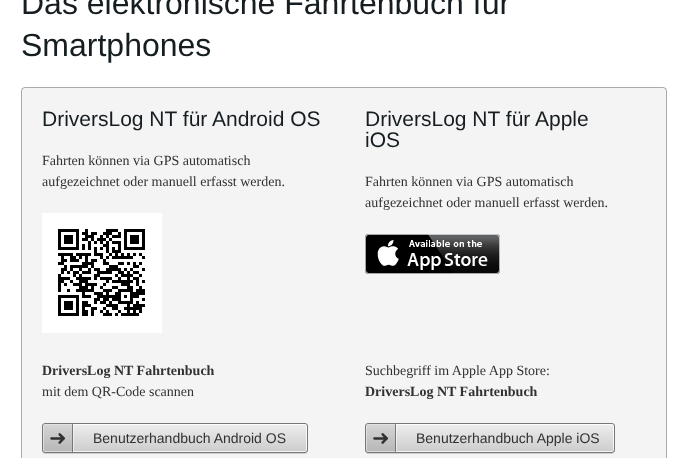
(async () => {
  const canvas = document.querySelector("canvas");
  canvas.width = 688;
  canvas.height = 458;
  const ctx = canvas.getContext("2d");
  ctx.miterLimit = 4;
  ctx.fontKerning = "normal";
  async function loadImage(src) {
    const img = new Image();
    img.src = src;
    await img.decode();
    return img;
  }
  let gradient, path;

  ctx.fillStyle = "#ffffff";
  ctx.fillRect(0, 0, 688, 458);
  ctx.fillStyle = "#f4f4f4";
  ctx.beginPath();
  ctx.roundRect(21, 87, 646, 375, 4);
  ctx.fill();
  ctx.beginPath();
  ctx.roundRect(21.5, 87.5, 645, 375, 3.5);
  ctx.strokeStyle = "rgba(0, 0, 0, 0.3)";
  ctx.stroke();
  ctx.drawImage(await loadImage("img/1.png"), 42, 213, 120, 120);
  ctx.fillStyle = "#cfcfcf";
  path = new Path2D("M42 450C42 452 43 454 45 454H306L307 453L308 450C308 452 307 453 305 453H45C43 453 42 452 42 450Z");
  ctx.fill(path);
  ctx.save();
  ctx.beginPath();
  ctx.roundRect(42, 423, 266, 30, 3);
  ctx.clip();
  gradient = ctx.createLinearGradient(175, 424, 175, 452);
  gradient.addColorStop(0, "#eeeeee");
  gradient.addColorStop(1, "#cccccc");
  ctx.fillStyle = gradient;
  ctx.fillRect(42, 424, 266, 28);
  ctx.restore();
  ctx.beginPath();
  ctx.roundRect(43.5, 424.5, 263, 27, 1.5);
  ctx.strokeStyle = "rgba(255, 255, 255, 0.8)";
  ctx.stroke();
  ctx.beginPath();
  ctx.roundRect(42.5, 423.5, 265, 29, 2.5);
  ctx.strokeStyle = "#777777";
  ctx.stroke();
  ctx.fillStyle = "rgba(255, 255, 255, 0.5)";
  ctx.fillRect(72, 424, 2, 28);
  ctx.fillStyle = "rgba(0, 0, 0, 0.5)";
  ctx.fillRect(72, 424, 1, 28);
  ctx.fillStyle = "rgba(0, 0, 0, 0.1)";
  ctx.beginPath();
  ctx.roundRect(43, 424, 29, 28, [3, 0, 0, 3]);
  ctx.fill();
  ctx.drawImage(await loadImage("img/2.png"), 365, 234, 135, 40);
  ctx.fillStyle = "#cfcfcf";
  path = new Path2D("M365 450C365 452 366 454 368 454H612L614 453L615 450C615 452 614 453 612 453H368C366 453 365 452 365 450Z");
  ctx.fill(path);
  ctx.save();
  ctx.beginPath();
  ctx.roundRect(365, 423, 250, 30, 3);
  ctx.clip();
  gradient = ctx.createLinearGradient(490, 424, 490, 452);
  gradient.addColorStop(0, "#eeeeee");
  gradient.addColorStop(1, "#cccccc");
  ctx.fillStyle = gradient;
  ctx.fillRect(365, 424, 250, 28);
  ctx.restore();
  ctx.beginPath();
  ctx.roundRect(366.5, 424.5, 247, 27, 1.5);
  ctx.strokeStyle = "rgba(255, 255, 255, 0.8)";
  ctx.stroke();
  ctx.beginPath();
  ctx.roundRect(365.5, 423.5, 249, 29, 2.5);
  ctx.strokeStyle = "#777777";
  ctx.stroke();
  ctx.fillStyle = "rgba(255, 255, 255, 0.5)";
  ctx.fillRect(395, 424, 2, 28);
  ctx.fillStyle = "rgba(0, 0, 0, 0.5)";
  ctx.fillRect(395, 424, 1, 28);
  ctx.fillStyle = "rgba(0, 0, 0, 0.1)";
  ctx.beginPath();
  ctx.roundRect(366, 424, 29, 28, [3, 0, 0, 3]);
  ctx.fill();
  ctx.font = "32px Liberation Sans";
  ctx.fillStyle = "#161e21";
  ctx.fillText("Das elektronische Fahrtenbuch für", 21, 14);
  ctx.fillText("Smartphones", 21, 56);
  ctx.font = "21px Liberation Sans";
  ctx.fillText("DriversLog NT für Android OS", 42, 126);
  ctx.font = "14px Liberation Serif";
  ctx.fillStyle = "#313131";
  ctx.fillText("Fahrten können via GPS automatisch", 42, 165);
  ctx.fillText("aufgezeichnet oder manuell erfasst werden.", 42, 186);
  ctx.font = "bold 14px Liberation Serif";
  ctx.fillText("DriversLog NT Fahrtenbuch", 42, 375);
  ctx.font = "14px Liberation Serif";
  ctx.fillText("mit dem QR-Code scannen", 42, 396);
  ctx.font = "21px DejaVu Sans";
  ctx.fillText("➜", 49, 445);
  ctx.font = "14px Liberation Sans";
  ctx.fillText("Benutzerhandbuch Android OS", 93, 443);
  ctx.font = "21px Liberation Sans";
  ctx.fillStyle = "#161e21";
  ctx.fillText("DriversLog NT für Apple", 365, 126);
  ctx.fillText("iOS", 365, 147);
  ctx.font = "14px Liberation Serif";
  ctx.fillStyle = "#313131";
  for (const [text, x, y] of [
    ["Fahrten können via GPS automatisch", 365, 186],
    ["aufgezeichnet oder manuell erfasst werden.", 365, 207],
    ["Suchbegriff im Apple App Store:", 365, 375],
  ]) {
    ctx.fillText(text, x, y);
  }
  ctx.font = "bold 14px Liberation Serif";
  ctx.fillText("DriversLog NT Fahrtenbuch", 365, 396);
  ctx.font = "21px DejaVu Sans";
  ctx.fillText("➜", 372, 445);
  ctx.font = "14px Liberation Sans";
  ctx.fillText("Benutzerhandbuch Apple iOS", 416, 443);
})();
